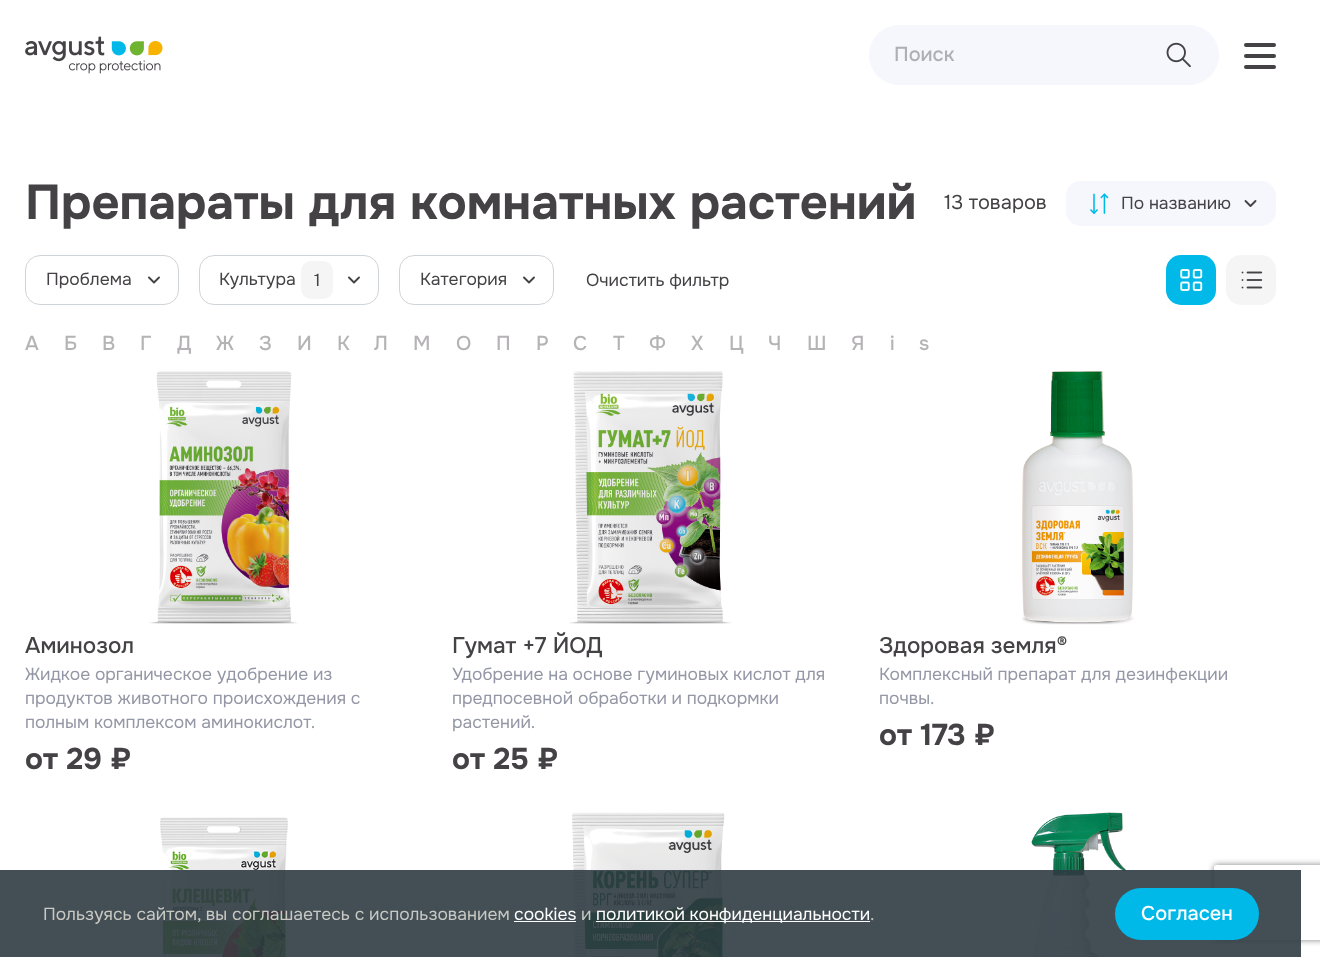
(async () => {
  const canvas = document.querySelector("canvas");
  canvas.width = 1320;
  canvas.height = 957;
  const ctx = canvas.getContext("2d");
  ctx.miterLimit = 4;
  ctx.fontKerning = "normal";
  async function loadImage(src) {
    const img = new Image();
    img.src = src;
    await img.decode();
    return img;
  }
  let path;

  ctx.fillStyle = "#ffffff";
  ctx.fillRect(0, 0, 1320, 957);
  ctx.drawImage(await loadImage("img/1.png"), 25, 36, 138, 38);
  ctx.fillStyle = "#f6f7fc";
  ctx.beginPath();
  ctx.roundRect(869, 25, 350, 60, 30);
  ctx.fill();
  ctx.drawImage(await loadImage("img/2.png"), 1166, 42, 25, 26);
  ctx.fillStyle = "#454246";
  ctx.beginPath();
  ctx.roundRect(1244, 43, 32, 4, 2);
  ctx.fill();
  ctx.beginPath();
  ctx.roundRect(1244, 54, 32, 4, 2);
  ctx.fill();
  ctx.beginPath();
  ctx.roundRect(1244, 65, 32, 4, 2);
  ctx.fill();
  ctx.fillStyle = "#f6f7fc";
  ctx.beginPath();
  ctx.roundRect(1066, 181, 210, 45, 15);
  ctx.fill();
  ctx.drawImage(await loadImage("img/3.png"), 1090, 193, 19, 21);
  path = new Path2D("M1255.5 201L1250.5 206L1245.5 201");
  ctx.strokeStyle = "#454246";
  ctx.lineWidth = 1.9;
  ctx.lineCap = "round";
  ctx.lineJoin = "round";
  ctx.stroke(path);
  ctx.beginPath();
  ctx.roundRect(25.5, 255.5, 153, 49, 14.5);
  ctx.strokeStyle = "#cfd4d9";
  ctx.lineWidth = 1;
  ctx.lineJoin = "miter";
  ctx.stroke();
  path = new Path2D("M159 277.5L154 282.5L149 277.5");
  ctx.strokeStyle = "#454246";
  ctx.lineWidth = 1.9;
  ctx.lineJoin = "round";
  ctx.stroke(path);
  ctx.beginPath();
  ctx.roundRect(199.5, 255.5, 179, 49, 14.5);
  ctx.strokeStyle = "#cfd4d9";
  ctx.lineWidth = 1;
  ctx.lineJoin = "miter";
  ctx.stroke();
  ctx.fillStyle = "#f5f5f5";
  ctx.beginPath();
  ctx.roundRect(301, 261, 32, 38, 10);
  ctx.fill();
  path = new Path2D("M359 277.5L354 282.5L349 277.5");
  ctx.strokeStyle = "#454246";
  ctx.lineWidth = 1.9;
  ctx.lineJoin = "round";
  ctx.stroke(path);
  ctx.beginPath();
  ctx.roundRect(399.5, 255.5, 154, 49, 14.5);
  ctx.strokeStyle = "#cfd4d9";
  ctx.lineWidth = 1;
  ctx.lineJoin = "miter";
  ctx.stroke();
  path = new Path2D("M534 277.5L529 282.5L524 277.5");
  ctx.strokeStyle = "#454246";
  ctx.lineWidth = 1.9;
  ctx.lineJoin = "round";
  ctx.stroke(path);
  ctx.fillStyle = "#00b9e8";
  ctx.beginPath();
  ctx.roundRect(1166, 255, 50, 50, 15);
  ctx.fill();
  ctx.drawImage(await loadImage("img/4.png"), 1180, 269, 23, 22);
  ctx.fillStyle = "#f5f5f5";
  ctx.beginPath();
  ctx.roundRect(1226, 255, 50, 50, 15);
  ctx.fill();
  ctx.drawImage(await loadImage("img/5.png"), 1241, 271, 22, 18);
  ctx.drawImage(await loadImage("img/6.png"), 149, 371, 149, 253);
  ctx.drawImage(await loadImage("img/7.png"), 569, 371, 163, 253);
  ctx.drawImage(await loadImage("img/8.png"), 1022, 371, 112, 254);
  ctx.drawImage(await loadImage("img/9.png"), 160, 817, 128, 140);
  ctx.drawImage(await loadImage("img/10.png"), 572, 812, 153, 145);
  ctx.drawImage(await loadImage("img/11.png"), 1031, 812, 95, 145);
  ctx.save();
  path = new Path2D("M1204 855H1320V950H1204ZM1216.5 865H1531.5C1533 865 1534 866 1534 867.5V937.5C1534 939 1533 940 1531.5 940H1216.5C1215 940 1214 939 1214 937.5V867.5C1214 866 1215 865 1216.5 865Z");
  ctx.clip(path, "evenodd");
  ctx.fillStyle = "#808080";
  ctx.filter = "blur(3px)";
  ctx.beginPath();
  ctx.roundRect(1214, 865, 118, 75, 2.5);
  ctx.fill();
  ctx.filter = "none";
  ctx.restore();
  for (const [x, y, w, h, color] of [
    [0, 870, 1301, 87, "rgba(47, 59, 66, 0.9)"],
    [514, 921, 62, 1, "#ffffff"],
    [596, 921, 274, 1, "#ffffff"],
  ]) {
    ctx.fillStyle = color;
    ctx.fillRect(x, y, w, h);
  }
  ctx.fillStyle = "#00b9e8";
  ctx.beginPath();
  ctx.roundRect(1115, 888, 144, 52, 26);
  ctx.fill();
  ctx.font = "500 20px Onest";
  ctx.fillStyle = "#afafb3";
  ctx.fillText("Поиск", 894, 61);
  ctx.font = "bold 48.9px Onest";
  ctx.fillStyle = "#454246";
  ctx.fillText("Препараты для комнатных растений", 25, 219);
  ctx.font = "20px Onest";
  ctx.fillText("13 товаров", 944, 209);
  ctx.font = "17.5px Onest";
  for (const [text, x, y] of [
    ["По названию", 1121, 209],
    ["Проблема", 46, 285],
    ["Культура", 219, 285],
    ["1", 314, 286],
    ["Категория", 420, 285],
    ["Очистить фильтр", 586, 286],
  ]) {
    ctx.fillText(text, x, y);
  }
  ctx.font = "500 20px Onest";
  ctx.fillStyle = "#b5b3b5";
  for (const [text, x, y] of [
    ["А", 25, 350],
    ["Б", 64, 350],
    ["В", 102, 350],
    ["Г", 140, 350],
    ["Д", 177, 350],
    ["Ж", 216, 350],
    ["З", 259, 350],
    ["И", 297, 350],
    ["К", 337, 350],
    ["Л", 374, 350],
    ["М", 413, 350],
    ["О", 456, 350],
    ["П", 496, 350],
    ["Р", 536, 350],
    ["С", 573, 350],
    ["Т", 613, 350],
    ["Ф", 649, 350],
    ["Х", 691, 350],
    ["Ц", 729, 350],
    ["Ч", 768, 350],
    ["Ш", 807, 350],
    ["Я", 851, 350],
    ["i", 890, 350],
    ["s", 919, 350],
  ]) {
    ctx.fillText(text, x, y);
  }
  ctx.font = "500 22.5px Onest";
  ctx.fillStyle = "#454246";
  ctx.fillText("Аминозол", 25, 653);
  ctx.font = "17.5px Onest";
  ctx.fillStyle = "#9497a5";
  for (const [text, x, y] of [
    ["Жидкое органическое удобрение из", 25, 680],
    ["продуктов животного происхождения с", 25, 704],
    ["полным комплексом аминокислот.", 25, 728],
  ]) {
    ctx.fillText(text, x, y);
  }
  ctx.font = "bold 30px Onest";
  ctx.fillStyle = "#454246";
  ctx.fillText("от 29 ₽", 25, 769);
  ctx.font = "500 22.5px Onest";
  ctx.fillText("Гумат +7 ЙОД", 452, 653);
  ctx.font = "17.5px Onest";
  ctx.fillStyle = "#9497a5";
  for (const [text, x, y] of [
    ["Удобрение на основе гуминовых кислот для", 452, 680],
    ["предпосевной обработки и подкормки", 452, 704],
    ["растений.", 452, 728],
  ]) {
    ctx.fillText(text, x, y);
  }
  ctx.font = "bold 30px Onest";
  ctx.fillStyle = "#454246";
  ctx.fillText("от 25 ₽", 452, 769);
  ctx.font = "500 22.5px Onest";
  ctx.fillText("Здоровая земля®", 879, 653);
  ctx.font = "17.5px Onest";
  ctx.fillStyle = "#9497a5";
  ctx.fillText("Комплексный препарат для дезинфекции", 879, 680);
  ctx.fillText("почвы.", 879, 704);
  ctx.font = "bold 30px Onest";
  ctx.fillStyle = "#454246";
  ctx.fillText("от 173 ₽", 879, 745);
  ctx.font = "17.5px Onest";
  ctx.fillStyle = "#c9c9c3";
  ctx.fillText("Пользуясь сайтом, вы соглашаетесь с использованием", 43, 920);
  ctx.fillStyle = "#ffffff";
  ctx.fillText("cookies", 514, 920);
  ctx.fillStyle = "#c9c9c3";
  ctx.fillText("и", 581, 920);
  ctx.fillStyle = "#ffffff";
  ctx.fillText("политикой конфиденциальности", 596, 920);
  ctx.fillStyle = "#c9c9c3";
  ctx.fillText(".", 870, 920);
  ctx.font = "500 20px Onest";
  ctx.fillStyle = "#ffffff";
  ctx.fillText("Согласен", 1141, 920);
})();
